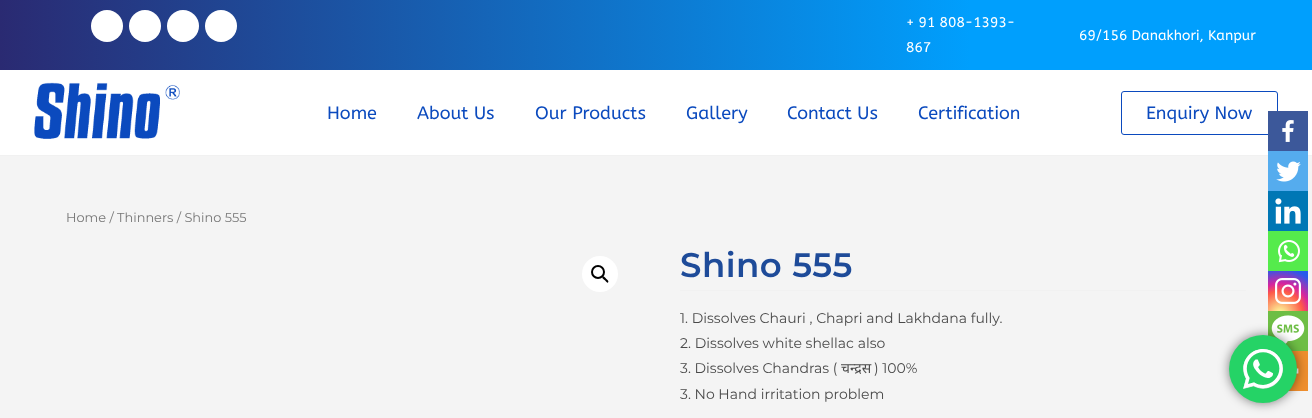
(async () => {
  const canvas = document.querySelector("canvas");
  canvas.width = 1312;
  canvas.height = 418;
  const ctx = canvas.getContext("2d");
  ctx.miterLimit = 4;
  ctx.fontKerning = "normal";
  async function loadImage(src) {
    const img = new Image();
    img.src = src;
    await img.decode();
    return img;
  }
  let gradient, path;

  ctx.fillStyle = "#f4f4f4";
  ctx.fillRect(0, 0, 1312, 418);
  ctx.fillStyle = "#ffffff";
  ctx.fillRect(0, 70, 1312, 85);
  ctx.fillStyle = "#f1f1f1";
  ctx.fillRect(0, 155, 1312, 1);
  gradient = ctx.createLinearGradient(0, 35, 1312, 35);
  gradient.addColorStop(0, "#2a2a72");
  gradient.addColorStop(0.74, "#009ffd");
  ctx.fillStyle = gradient;
  ctx.fillRect(0, 0, 1312, 70);
  ctx.fillStyle = "#ffffff";
  ctx.beginPath();
  ctx.arc(107, 26, 16, 0, Math.PI * 2);
  ctx.fill();
  ctx.beginPath();
  ctx.arc(145, 26, 16, 0, Math.PI * 2);
  ctx.fill();
  ctx.beginPath();
  ctx.arc(183, 26, 16, 0, Math.PI * 2);
  ctx.fill();
  ctx.beginPath();
  ctx.arc(221, 26, 16, 0, Math.PI * 2);
  ctx.fill();
  ctx.drawImage(await loadImage("img/1.png"), 34, 82, 146, 57);
  ctx.beginPath();
  ctx.roundRect(1121.5, 91.5, 156, 43, 2.5);
  ctx.strokeStyle = "#0b4abe";
  ctx.stroke();
  ctx.beginPath();
  ctx.arc(600, 274, 18, 0, Math.PI * 2);
  ctx.fill();
  ctx.beginPath();
  ctx.arc(598, 272, 6, 0, Math.PI * 2);
  ctx.strokeStyle = "#000000";
  ctx.lineWidth = 2;
  ctx.stroke();
  ctx.fillStyle = "#000000";
  path = new Path2D("M602.5 276.5C603.5 275.5 605.5 278 606 278.5C606.5 279.5 609.5 281 608 282.5C607 283.5 605.5 280.5 604.5 280C604 279.5 601.5 278 602.5 276.5Z");
  ctx.fill(path);
  ctx.fillStyle = "#f1f1f1";
  ctx.fillRect(680, 290, 566, 1);
  ctx.fillStyle = "#3c589a";
  ctx.fillRect(1268, 111, 40, 40);
  ctx.drawImage(await loadImage("img/2.png"), 1282, 120, 12, 22);
  ctx.fillStyle = "#55acee";
  ctx.fillRect(1268, 151, 40, 40);
  ctx.drawImage(await loadImage("img/3.png"), 1276, 161, 25, 21);
  ctx.fillStyle = "#0077b5";
  ctx.fillRect(1268, 191, 40, 40);
  ctx.drawImage(await loadImage("img/4.png"), 1275, 198, 26, 26);
  ctx.fillStyle = "#55eb4c";
  ctx.fillRect(1268, 231, 40, 40);
  ctx.drawImage(await loadImage("img/5.png"), 1278, 240, 22, 23);
  gradient = ctx.createRadialGradient(1280, 314, 0, 1280, 314, 51);
  gradient.addColorStop(0, "#fdf497");
  gradient.addColorStop(0.05, "#fdf497");
  gradient.addColorStop(0.45, "#fd5949");
  gradient.addColorStop(0.6, "#d6249f");
  gradient.addColorStop(0.9, "#285aeb");
  ctx.fillStyle = gradient;
  ctx.fillRect(1268, 271, 40, 40);
  ctx.drawImage(await loadImage("img/6.png"), 1275, 278, 26, 26);
  ctx.fillStyle = "#6ebe45";
  ctx.fillRect(1268, 311, 40, 40);
  ctx.drawImage(await loadImage("img/7.png"), 1271, 315, 34, 29);
  ctx.fillStyle = "#ee8e2d";
  ctx.fillRect(1288, 351, 20, 40);
  ctx.drawImage(await loadImage("img/8.png"), 1296, 368, 3, 6);
  ctx.fillStyle = "rgba(0, 0, 0, 0.5)";
  ctx.filter = "blur(5.5px)";
  ctx.beginPath();
  ctx.roundRect(1229, 335, 68, 68, 34);
  ctx.fill();
  ctx.filter = "none";
  ctx.fillStyle = "#25d366";
  ctx.beginPath();
  ctx.arc(1263, 369, 34, 0, Math.PI * 2);
  ctx.fill();
  ctx.drawImage(await loadImage("img/9.png"), 1243, 349, 40, 40);
  ctx.font = "14px ABeeZee";
  ctx.fillStyle = "#ffffff";
  for (const [text, x, y] of [
    ["+ 91 808-1393-", 906, 27],
    ["867", 906, 52],
    ["69/156 Danakhori, Kanpur", 1079, 40],
  ]) {
    ctx.fillText(text, x, y);
  }
  ctx.font = "18px ABeeZee";
  ctx.fillStyle = "#0b4abe";
  for (const [text, x, y] of [
    ["Home", 327, 119],
    ["About Us", 417, 119],
    ["Our Products", 535, 119],
    ["Gallery", 686, 119],
    ["Contact Us", 787, 119],
    ["Certification", 918, 119],
    ["Enquiry Now", 1146, 119],
  ]) {
    ctx.fillText(text, x, y);
  }
  ctx.font = "12.9px Montserrat";
  ctx.fillStyle = "#767676";
  ctx.fillText("Home / Thinners / Shino 555", 66, 222);
  ctx.letterSpacing = "0.5px";
  ctx.font = "600 34px Montserrat";
  ctx.fillStyle = "#1e4b99";
  ctx.fillText("Shino 555", 680, 277);
  ctx.letterSpacing = "0px";
  ctx.font = "14px Montserrat";
  ctx.fillStyle = "#4a4a4a";
  for (const [text, x, y] of [
    ["1. Dissolves Chauri , Chapri and Lakhdana fully.", 680, 323],
    ["2. Dissolves white shellac also", 680, 348],
    ["3. Dissolves Chandras (", 680, 373],
  ]) {
    ctx.fillText(text, x, y);
  }
  ctx.font = "14px Noto Sans";
  ctx.fillText("चन्द्रस", 841, 373);
  ctx.font = "14px Montserrat";
  ctx.fillText(") 100%", 874, 373);
  ctx.fillText("3. No Hand irritation problem", 680, 399);
})();
